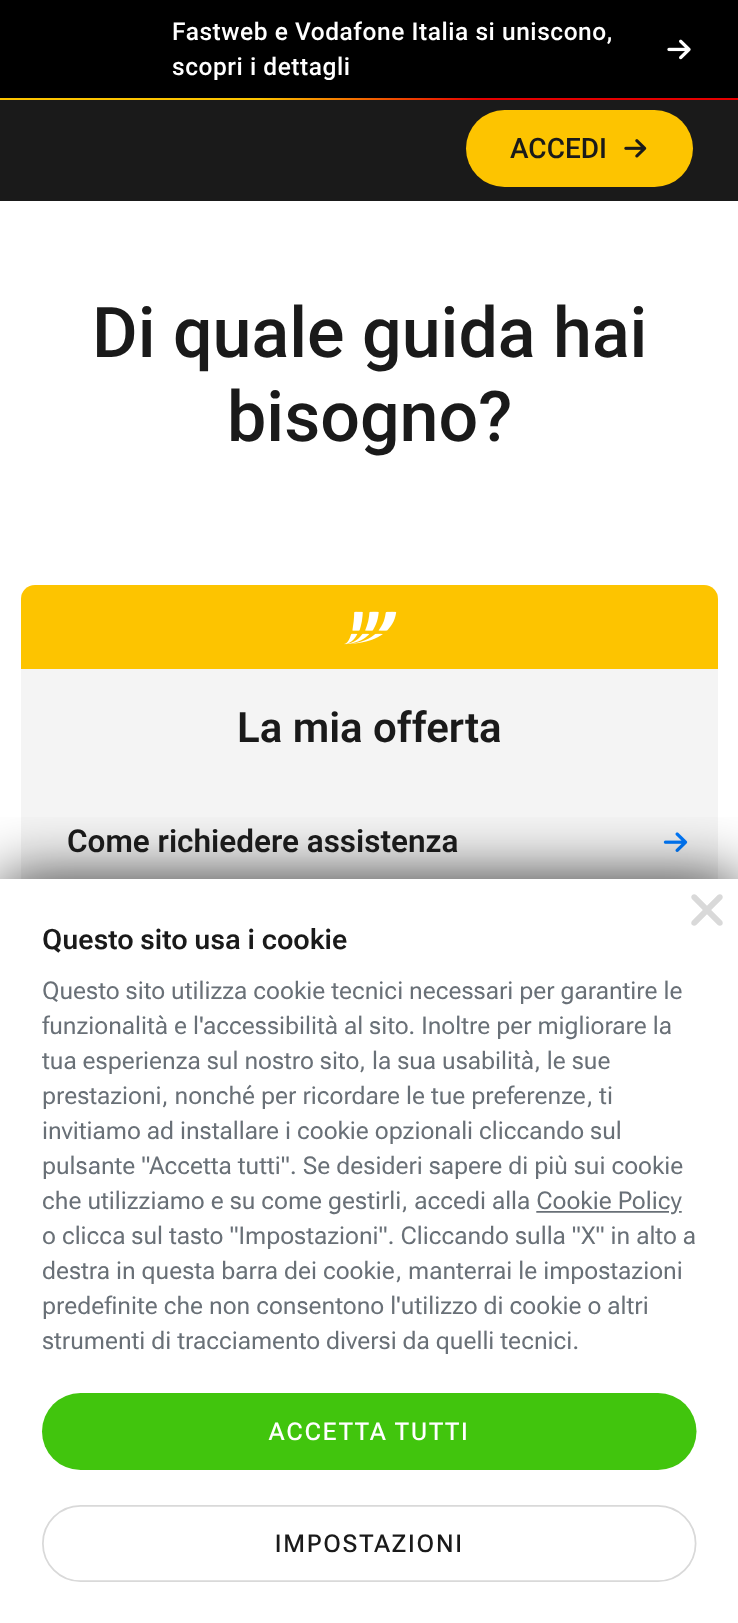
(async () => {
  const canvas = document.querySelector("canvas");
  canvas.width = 738;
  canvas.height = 1623;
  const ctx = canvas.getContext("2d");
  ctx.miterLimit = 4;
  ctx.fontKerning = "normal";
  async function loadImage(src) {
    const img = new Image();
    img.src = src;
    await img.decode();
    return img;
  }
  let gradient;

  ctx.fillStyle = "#ffffff";
  ctx.fillRect(0, 0, 738, 1623);
  ctx.fillStyle = "#000000";
  ctx.fillRect(0, 0, 738, 98);
  ctx.drawImage(await loadImage("img/1.png"), 667, 39, 24, 21);
  gradient = ctx.createLinearGradient(0, 99, 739, 99);
  gradient.addColorStop(0.35, "#fdc400");
  gradient.addColorStop(0.65, "#e60000");
  ctx.fillStyle = gradient;
  ctx.fillRect(0, 98, 738, 2);
  ctx.fillStyle = "#1a1a1a";
  ctx.fillRect(0, 100, 738, 101);
  ctx.fillStyle = "#fdc400";
  ctx.beginPath();
  ctx.roundRect(466, 110, 227, 77, 38.5);
  ctx.fill();
  ctx.drawImage(await loadImage("img/2.png"), 624, 139, 23, 19);
  ctx.beginPath();
  ctx.roundRect(21, 585, 697, 84, [14, 14, 0, 0]);
  ctx.fill();
  ctx.drawImage(await loadImage("img/3.png"), 344, 611, 53, 34);
  ctx.fillStyle = "#f4f4f4";
  ctx.fillRect(21, 669, 697, 210);
  ctx.drawImage(await loadImage("img/4.png"), 663, 832, 25, 20);
  ctx.save();
  ctx.beginPath();
  ctx.rect(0, 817, 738, 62);
  ctx.clip();
  ctx.fillStyle = "rgba(0, 0, 0, 0.8)";
  ctx.filter = "blur(31.5px)";
  ctx.beginPath();
  ctx.rect(0, 879, 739, 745);
  ctx.fill();
  ctx.filter = "none";
  ctx.restore();
  ctx.drawImage(await loadImage("img/5.png"), 21, 879, 702, 744);
  ctx.letterSpacing = "0.55px";
  ctx.font = "500 24.5px Roboto";
  ctx.fillStyle = "#ffffff";
  ctx.fillText("Fastweb e Vodafone Italia si uniscono,", 172, 40);
  ctx.fillText("scopri i dettagli", 172, 75);
  ctx.letterSpacing = "0px";
  ctx.font = "500 28px Roboto";
  ctx.fillStyle = "#1a1a1a";
  ctx.fillText("ACCEDI", 510, 158);
  ctx.font = "500 70px Roboto";
  ctx.fillText("Di quale guida hai", 92, 357);
  ctx.fillText("bisogno?", 227, 441);
  ctx.font = "600 42px Roboto";
  ctx.fillText("La mia offerta", 237, 742);
  ctx.font = "600 31.5px Roboto";
  ctx.fillText("Come richiedere assistenza", 67, 852);
})();
